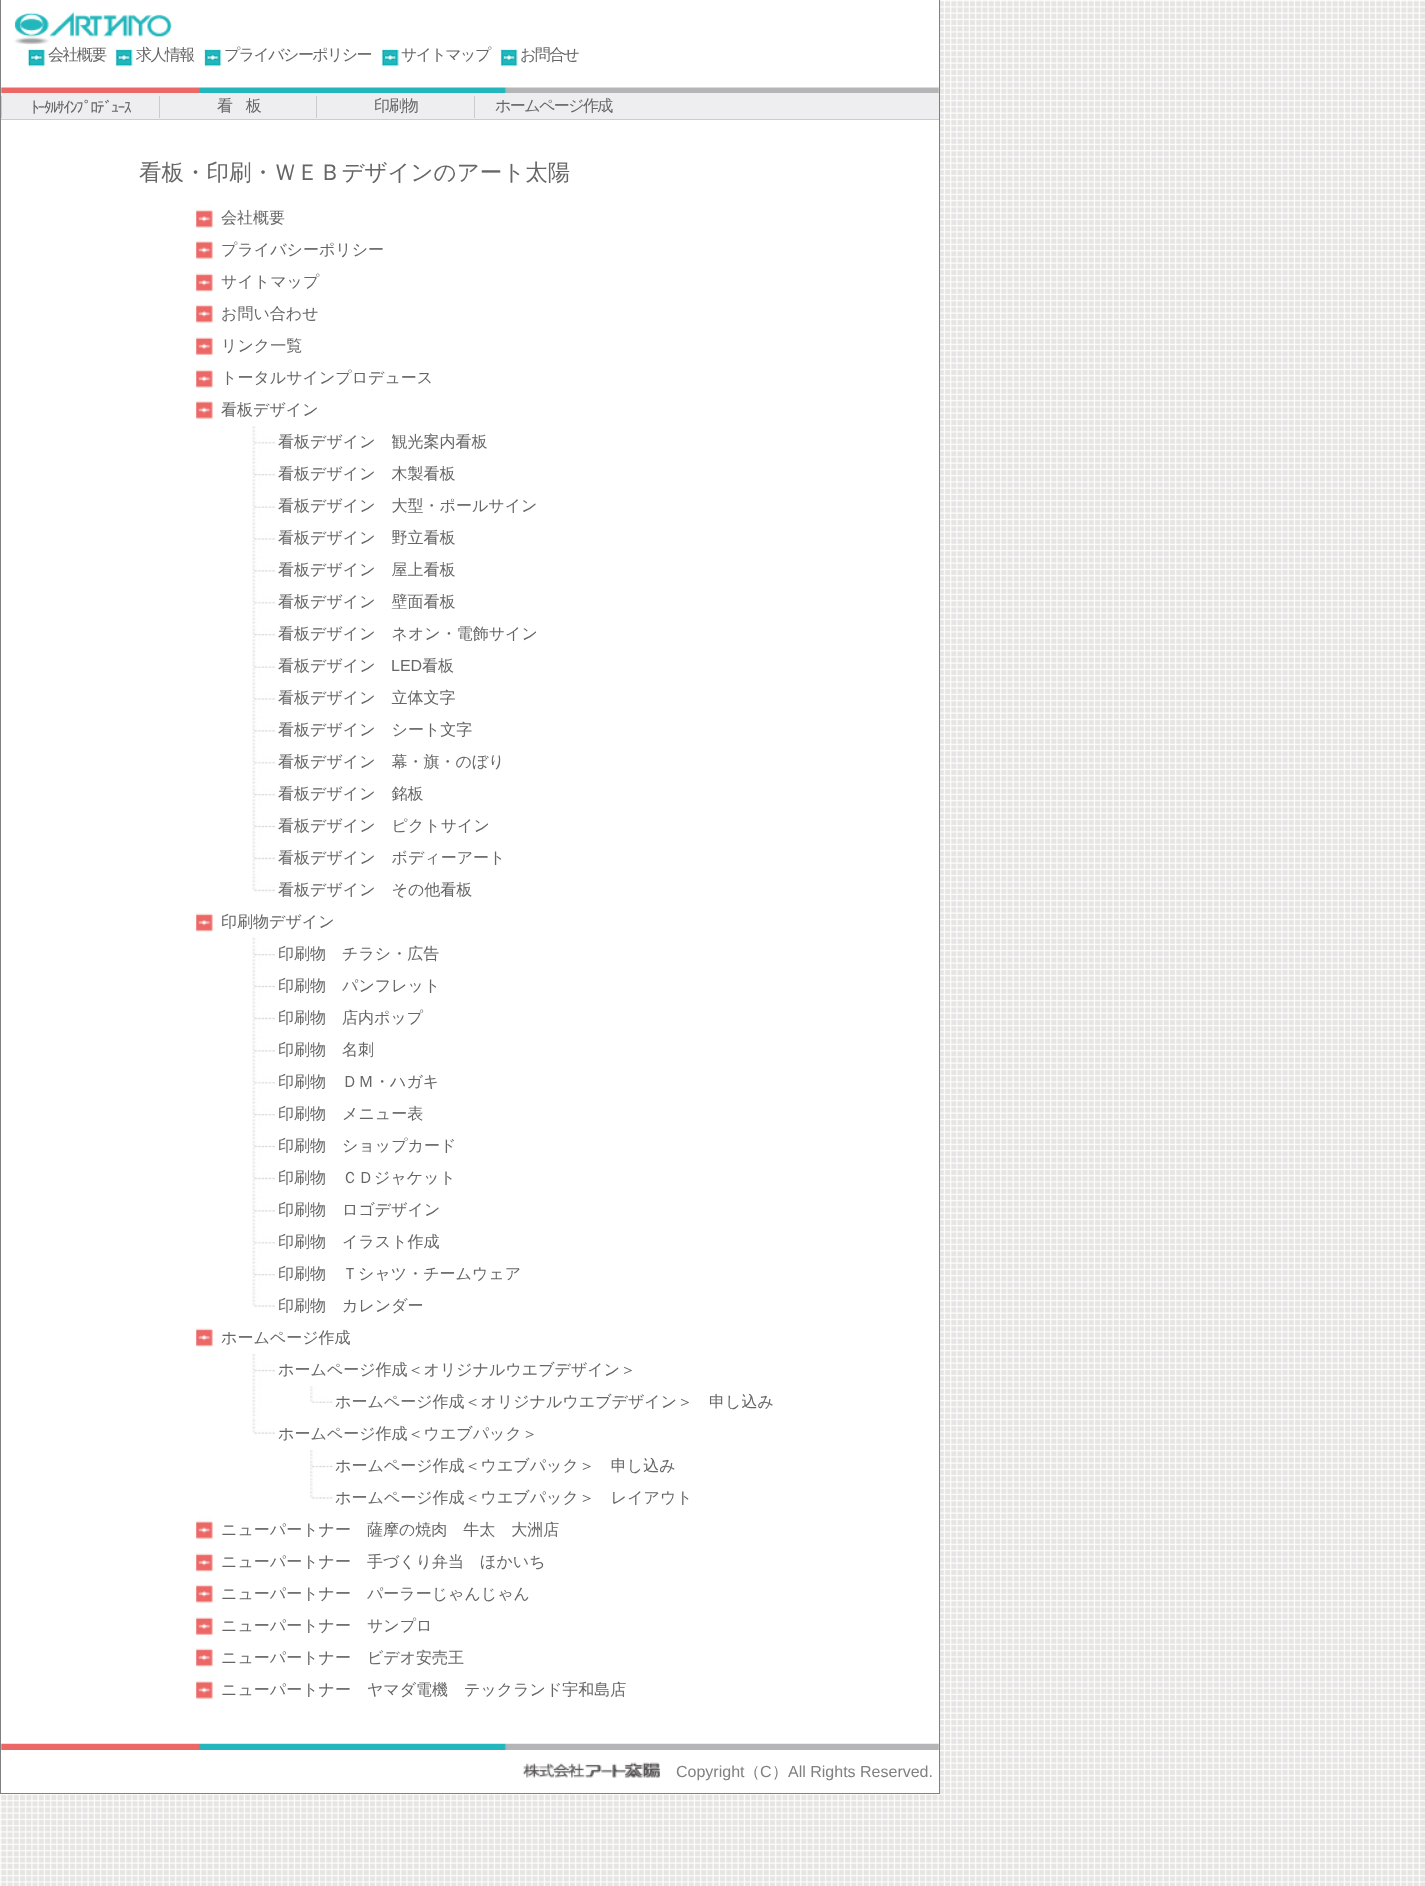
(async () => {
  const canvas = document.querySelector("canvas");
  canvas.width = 1425;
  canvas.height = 1886;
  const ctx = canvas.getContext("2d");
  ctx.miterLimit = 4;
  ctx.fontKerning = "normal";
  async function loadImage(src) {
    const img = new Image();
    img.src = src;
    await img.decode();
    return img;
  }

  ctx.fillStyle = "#ffffff";
  ctx.fillRect(0, 0, 1425, 1886);
  ctx.drawImage(await loadImage("img/1.png"), 0, 0, 1425, 1886);
  for (const [x, y, w, h, color] of [
    [1, 0, 938, 1793, "#ffffff"],
    [939, 0, 1, 1794, "#808080"],
    [0, 0, 1, 1794, "#808080"],
  ]) {
    ctx.fillStyle = color;
    ctx.fillRect(x, y, w, h);
  }
  ctx.drawImage(await loadImage("img/2.png"), 1, 87, 938, 6);
  ctx.drawImage(await loadImage("img/3.png"), 14, 12, 158, 33);
  ctx.drawImage(await loadImage("img/4.png"), 27, 48, 18, 19);
  ctx.drawImage(await loadImage("img/5.png"), 115, 48, 18, 19);
  ctx.drawImage(await loadImage("img/6.png"), 203, 48, 19, 19);
  ctx.drawImage(await loadImage("img/7.png"), 381, 48, 18, 19);
  ctx.drawImage(await loadImage("img/8.png"), 500, 48, 18, 19);
  for (const [x, y, w, h, color] of [
    [1, 119, 938, 1, "#cccccc"],
    [1, 93, 938, 26, "#eeeef0"],
    [1, 96, 1, 22, "#cccccc"],
    [159, 96, 1, 22, "#cccccc"],
    [316, 96, 1, 22, "#cccccc"],
    [474, 96, 1, 22, "#cccccc"],
  ]) {
    ctx.fillStyle = color;
    ctx.fillRect(x, y, w, h);
  }
  ctx.drawImage(await loadImage("img/9.png"), 196, 204, 17, 24);
  ctx.drawImage(await loadImage("img/10.png"), 196, 235, 17, 24);
  ctx.drawImage(await loadImage("img/11.png"), 196, 273, 17, 19);
  ctx.drawImage(await loadImage("img/9.png"), 196, 299, 17, 24);
  ctx.drawImage(await loadImage("img/12.png"), 196, 337, 17, 18);
  ctx.drawImage(await loadImage("img/9.png"), 196, 364, 17, 24);
  ctx.drawImage(await loadImage("img/10.png"), 196, 395, 17, 24);
  ctx.drawImage(await loadImage("img/13.png"), 252, 426, 23, 31);
  ctx.drawImage(await loadImage("img/14.png"), 252, 457, 23, 33);
  ctx.drawImage(await loadImage("img/15.png"), 252, 490, 23, 32);
  ctx.drawImage(await loadImage("img/16.png"), 252, 522, 23, 32);
  ctx.drawImage(await loadImage("img/17.png"), 252, 554, 23, 32);
  ctx.drawImage(await loadImage("img/13.png"), 252, 586, 23, 31);
  ctx.drawImage(await loadImage("img/14.png"), 252, 617, 23, 33);
  ctx.drawImage(await loadImage("img/15.png"), 252, 650, 23, 32);
  ctx.drawImage(await loadImage("img/16.png"), 252, 682, 23, 32);
  ctx.drawImage(await loadImage("img/17.png"), 252, 714, 23, 32);
  ctx.drawImage(await loadImage("img/13.png"), 252, 746, 23, 31);
  ctx.drawImage(await loadImage("img/14.png"), 252, 777, 23, 33);
  ctx.drawImage(await loadImage("img/18.png"), 252, 810, 23, 31);
  ctx.drawImage(await loadImage("img/19.png"), 252, 841, 23, 33);
  ctx.drawImage(await loadImage("img/20.png"), 252, 874, 23, 19);
  ctx.drawImage(await loadImage("img/11.png"), 196, 913, 17, 19);
  ctx.drawImage(await loadImage("img/14.png"), 252, 937, 23, 33);
  ctx.drawImage(await loadImage("img/18.png"), 252, 970, 23, 31);
  ctx.drawImage(await loadImage("img/19.png"), 252, 1001, 23, 33);
  ctx.drawImage(await loadImage("img/17.png"), 252, 1034, 23, 32);
  ctx.drawImage(await loadImage("img/13.png"), 252, 1066, 23, 31);
  ctx.drawImage(await loadImage("img/14.png"), 252, 1097, 23, 33);
  ctx.drawImage(await loadImage("img/18.png"), 252, 1130, 23, 31);
  ctx.drawImage(await loadImage("img/19.png"), 252, 1161, 23, 33);
  ctx.drawImage(await loadImage("img/17.png"), 252, 1194, 23, 32);
  ctx.drawImage(await loadImage("img/13.png"), 252, 1226, 23, 31);
  ctx.drawImage(await loadImage("img/14.png"), 252, 1257, 23, 33);
  ctx.drawImage(await loadImage("img/21.png"), 252, 1290, 23, 18);
  ctx.drawImage(await loadImage("img/11.png"), 196, 1328, 17, 19);
  ctx.drawImage(await loadImage("img/22.png"), 252, 1353, 23, 65);
  ctx.drawImage(await loadImage("img/23.png"), 310, 1386, 23, 18);
  ctx.drawImage(await loadImage("img/24.png"), 252, 1418, 23, 16);
  ctx.drawImage(await loadImage("img/25.png"), 310, 1450, 23, 31);
  ctx.drawImage(await loadImage("img/26.png"), 310, 1481, 23, 19);
  ctx.drawImage(await loadImage("img/10.png"), 196, 1515, 17, 24);
  ctx.drawImage(await loadImage("img/27.png"), 196, 1553, 17, 19);
  ctx.drawImage(await loadImage("img/9.png"), 196, 1579, 17, 24);
  ctx.drawImage(await loadImage("img/12.png"), 196, 1617, 17, 18);
  ctx.drawImage(await loadImage("img/11.png"), 196, 1648, 17, 19);
  ctx.drawImage(await loadImage("img/10.png"), 196, 1675, 17, 24);
  ctx.drawImage(await loadImage("img/28.png"), 1, 1743, 938, 7);
  ctx.fillStyle = "#808080";
  ctx.fillRect(0, 1793, 940, 1);
  ctx.drawImage(await loadImage("img/29.png"), 522, 1762, 138, 16);
  ctx.letterSpacing = "-1.6px";
  ctx.font = "500 16px WenQuanYi Zen Hei";
  ctx.fillStyle = "#666666";
  for (const [text, x, y] of [
    ["会社概要", 48, 60],
    ["求人情報", 136, 60],
    ["プライバシーポリシー", 224, 60],
    ["サイトマップ", 401, 60],
    ["お問合せ", 520, 60],
  ]) {
    ctx.fillText(text, x, y);
  }
  ctx.font = "16px IPAGothic";
  ctx.fillText("ﾄｰﾀﾙｻｲﾝﾌﾟﾛﾃﾞｭｰｽ", 31, 113);
  ctx.font = "500 16px WenQuanYi Zen Hei";
  for (const [text, x, y] of [
    ["看　板", 217, 111],
    ["印刷物", 374, 111],
    ["ホームページ作成", 495, 111],
  ]) {
    ctx.fillText(text, x, y);
  }
  ctx.letterSpacing = "0px";
  ctx.font = "500 22.5px WenQuanYi Zen Hei";
  ctx.fillText("看板・印刷・ＷＥＢデザインのアート太陽", 139, 180);
  ctx.font = "500 16px WenQuanYi Zen Hei";
  for (const [text, x, y] of [
    ["会社概要", 221, 223],
    ["プライバシーポリシー", 221, 255],
    ["サイトマップ", 221, 287],
    ["お問い合わせ", 221, 319],
    ["リンク一覧", 221, 351],
    ["トータルサインプロデュース", 221, 383],
    ["看板デザイン", 221, 415],
    ["看板デザイン　観光案内看板", 278, 447],
    ["看板デザイン　木製看板", 278, 479],
    ["看板デザイン　大型・ポールサイン", 278, 511],
    ["看板デザイン　野立看板", 278, 543],
    ["看板デザイン　屋上看板", 278, 575],
    ["看板デザイン　壁面看板", 278, 607],
    ["看板デザイン　ネオン・電飾サイン", 278, 639],
    ["看板デザイン", 278, 671],
  ]) {
    ctx.fillText(text, x, y);
  }
  ctx.font = "16px Liberation Sans";
  ctx.fillText("LED", 391, 671);
  ctx.font = "500 16px WenQuanYi Zen Hei";
  for (const [text, x, y] of [
    ["看板", 422, 671],
    ["看板デザイン　立体文字", 278, 703],
    ["看板デザイン　シート文字", 278, 735],
    ["看板デザイン　幕・旗・のぼり", 278, 767],
    ["看板デザイン　銘板", 278, 799],
    ["看板デザイン　ピクトサイン", 278, 831],
    ["看板デザイン　ボディーアート", 278, 863],
    ["看板デザイン　その他看板", 278, 895],
    ["印刷物デザイン", 221, 927],
    ["印刷物　チラシ・広告", 278, 959],
    ["印刷物　パンフレット", 278, 991],
    ["印刷物　店内ポップ", 278, 1023],
    ["印刷物　名刺", 278, 1055],
    ["印刷物　ＤＭ・ハガキ", 278, 1087],
    ["印刷物　メニュー表", 278, 1119],
    ["印刷物　ショップカード", 278, 1151],
    ["印刷物　ＣＤジャケット", 278, 1183],
    ["印刷物　ロゴデザイン", 278, 1215],
    ["印刷物　イラスト作成", 278, 1247],
    ["印刷物　Ｔシャツ・チームウェア", 278, 1279],
    ["印刷物　カレンダー", 278, 1311],
    ["ホームページ作成", 221, 1343],
    ["ホームページ作成＜オリジナルウエブデザイン＞", 278, 1375],
    ["ホームページ作成＜オリジナルウエブデザイン＞　申し込み", 335, 1407],
    ["ホームページ作成＜ウエブパック＞", 278, 1439],
    ["ホームページ作成＜ウエブパック＞　申し込み", 335, 1471],
    ["ホームページ作成＜ウエブパック＞　レイアウト", 335, 1503],
    ["ニューパートナー　薩摩の焼肉　牛太　大洲店", 221, 1535],
    ["ニューパートナー　手づくり弁当　ほかいち", 221, 1567],
    ["ニューパートナー　パーラーじゃんじゃん", 221, 1599],
    ["ニューパートナー　サンプロ", 221, 1631],
    ["ニューパートナー　ビデオ安売王", 221, 1663],
    ["ニューパートナー　ヤマダ電機　テックランド宇和島店", 221, 1695],
  ]) {
    ctx.fillText(text, x, y);
  }
  ctx.font = "16px Liberation Sans";
  ctx.fillStyle = "#808080";
  ctx.fillText("Copyright", 676, 1777);
  ctx.font = "500 16px WenQuanYi Zen Hei";
  ctx.fillText("（", 744, 1777);
  ctx.font = "16px Liberation Sans";
  ctx.fillText("C", 760, 1777);
  ctx.font = "500 16px WenQuanYi Zen Hei";
  ctx.fillText("）", 772, 1777);
  ctx.font = "16px Liberation Sans";
  ctx.fillText("All Rights Reserved.", 788, 1777);
})();
